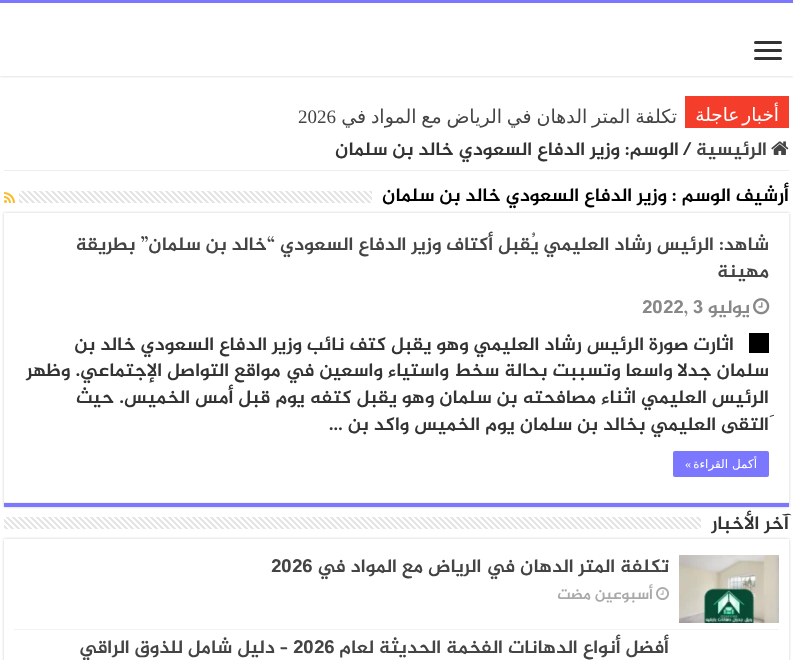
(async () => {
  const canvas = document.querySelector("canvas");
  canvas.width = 793;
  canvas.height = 660;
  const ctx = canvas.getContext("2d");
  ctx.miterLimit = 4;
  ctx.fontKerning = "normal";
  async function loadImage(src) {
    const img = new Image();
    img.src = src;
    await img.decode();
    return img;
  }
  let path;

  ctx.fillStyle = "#ffffff";
  ctx.fillRect(0, 0, 793, 660);
  ctx.save();
  ctx.beginPath();
  ctx.rect(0, 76, 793, 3);
  ctx.clip();
  ctx.fillStyle = "#cacaca";
  ctx.filter = "blur(1.5px)";
  ctx.beginPath();
  ctx.rect(0, 0, 793, 76);
  ctx.fill();
  ctx.filter = "none";
  ctx.restore();
  ctx.fillStyle = "#7b77ff";
  ctx.fillRect(0, 0, 793, 3);
  ctx.fillStyle = "#333333";
  ctx.beginPath();
  ctx.roundRect(754, 41, 28, 3, 1.5);
  ctx.fill();
  ctx.beginPath();
  ctx.roundRect(754, 49, 28, 3, 1.5);
  ctx.fill();
  ctx.beginPath();
  ctx.roundRect(754, 57, 28, 3, 1.5);
  ctx.fill();
  ctx.fillStyle = "#f43d2a";
  ctx.fillRect(685, 96, 104, 32);
  ctx.fillStyle = "#eeeeee";
  ctx.fillRect(4, 170, 785, 1);
  ctx.drawImage(await loadImage("img/1.png"), 771, 141, 18, 14);
  ctx.drawImage(await loadImage("img/2.png"), 19, 191, 353, 12);
  ctx.drawImage(await loadImage("img/3.png"), 4, 192, 11, 11);
  ctx.save();
  path = new Path2D("M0 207H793V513H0ZM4 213H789V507H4Z");
  ctx.clip(path, "evenodd");
  ctx.fillStyle = "#cacaca";
  ctx.filter = "blur(1.5px)";
  ctx.beginPath();
  ctx.rect(4, 213, 785, 294);
  ctx.fill();
  ctx.filter = "none";
  ctx.restore();
  ctx.fillStyle = "#7b77ff";
  ctx.fillRect(4, 503, 785, 4);
  ctx.fillStyle = "#f2f2f2";
  ctx.fillRect(4, 502, 785, 1);
  ctx.drawImage(await loadImage("img/4.png"), 753, 298, 17, 17);
  ctx.fillStyle = "#000000";
  ctx.fillRect(749, 333, 20, 20);
  ctx.fillStyle = "#7b77ff";
  ctx.beginPath();
  ctx.roundRect(673, 451, 96, 26, 2);
  ctx.fill();
  ctx.drawImage(await loadImage("img/5.png"), 4, 517, 697, 12);
  ctx.save();
  path = new Path2D("M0 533H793V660H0ZM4 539H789V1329H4Z");
  ctx.clip(path, "evenodd");
  ctx.fillStyle = "#cacaca";
  ctx.filter = "blur(1.5px)";
  ctx.beginPath();
  ctx.rect(4, 539, 785, 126);
  ctx.fill();
  ctx.filter = "none";
  ctx.restore();
  ctx.fillStyle = "#f2f2f2";
  ctx.fillRect(14, 629, 765, 1);
  ctx.drawImage(await loadImage("img/6.png"), 679, 555, 100, 68);
  ctx.drawImage(await loadImage("img/7.png"), 656, 587, 13, 14);
  ctx.wordSpacing = "-3px";
  ctx.direction = "rtl";
  ctx.font = "18.5px DejaVu Sans";
  ctx.fillStyle = "#ffffff";
  ctx.fillText("أخبار عاجلة", 779, 121);
  ctx.wordSpacing = "-1.25px";
  ctx.font = "19px DejaVu Sans";
  ctx.fillStyle = "#444444";
  ctx.fillText("تكلفة المتر الدهان في الرياض مع المواد في", 677, 123);
  ctx.wordSpacing = "0px";
  ctx.direction = "ltr";
  ctx.font = "19px Liberation Serif";
  ctx.fillText("2026", 298, 123);
  ctx.direction = "rtl";
  ctx.font = "bold 19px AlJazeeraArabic";
  ctx.fillText("الرئيسية", 767, 155);
  ctx.direction = "ltr";
  ctx.fillStyle = "#333333";
  ctx.fillText("/", 682, 155);
  ctx.direction = "rtl";
  ctx.fillText("الوسم:", 679, 155);
  ctx.fillText("وزير الدفاع السعودي خالد بن سلمان", 620, 155);
  ctx.fillStyle = "#000000";
  ctx.fillText("أرشيف الوسم :", 789, 201);
  ctx.fillText("وزير الدفاع السعودي خالد بن سلمان", 667, 201);
  ctx.fillStyle = "#444444";
  ctx.fillText("شاهد: الرئيس رشاد العليمي يُقبل أكتاف وزير الدفاع السعودي “خالد بن سلمان” بطريقة", 769, 250);
  ctx.fillText("مهينة", 769, 277);
  ctx.fillStyle = "#888888";
  ctx.fillText("يوليو", 750, 313);
  ctx.direction = "ltr";
  ctx.fillText("2022, 3", 642, 313);
  ctx.direction = "rtl";
  ctx.fillStyle = "#333333";
  for (const [text, x, y] of [
    ["اثارت صورة الرئيس رشاد العليمي وهو يقبل كتف نائب وزير الدفاع السعودي خالد بن", 734, 350],
    ["سلمان جدلا واسعا وتسببت بحالة سخط واستياء واسعين في مواقع التواصل الإجتماعي. وظهر", 769, 376],
    ["الرئيس العليمي اثناء مصافحته بن سلمان وهو يقبل كتفه يوم قبل أمس الخميس. حيث", 769, 403],
    ["َالتقى العليمي بخالد بن سلمان يوم الخميس واكد بن …", 769, 430],
  ]) {
    ctx.fillText(text, x, y);
  }
  ctx.font = "12px DejaVu Sans";
  ctx.fillStyle = "#ffffff";
  ctx.fillText("أكمل القراءة", 757, 468);
  ctx.font = "12px Liberation Serif";
  ctx.fillText("»", 691, 468);
  ctx.font = "bold 19px AlJazeeraArabic";
  ctx.fillStyle = "#333333";
  ctx.fillText("آخر الأخبار", 789, 529);
  ctx.fillStyle = "#444444";
  ctx.fillText("تكلفة المتر الدهان في الرياض مع المواد في", 669, 572);
  ctx.direction = "ltr";
  ctx.fillText("2026", 271, 572);
  ctx.direction = "rtl";
  ctx.font = "bold 15.25px AlJazeeraArabic";
  ctx.fillStyle = "#aaaaaa";
  ctx.fillText("أسبوعين مضت", 653, 599);
  ctx.font = "bold 19px AlJazeeraArabic";
  ctx.fillStyle = "#444444";
  ctx.fillText("أفضل أنواع الدهانات الفخمة الحديثة لعام", 669, 653);
  ctx.direction = "ltr";
  ctx.fillText("2026", 293, 653);
  ctx.direction = "rtl";
  ctx.fillText("– دليل شامل للذوق الراقي", 288, 653);
})();
